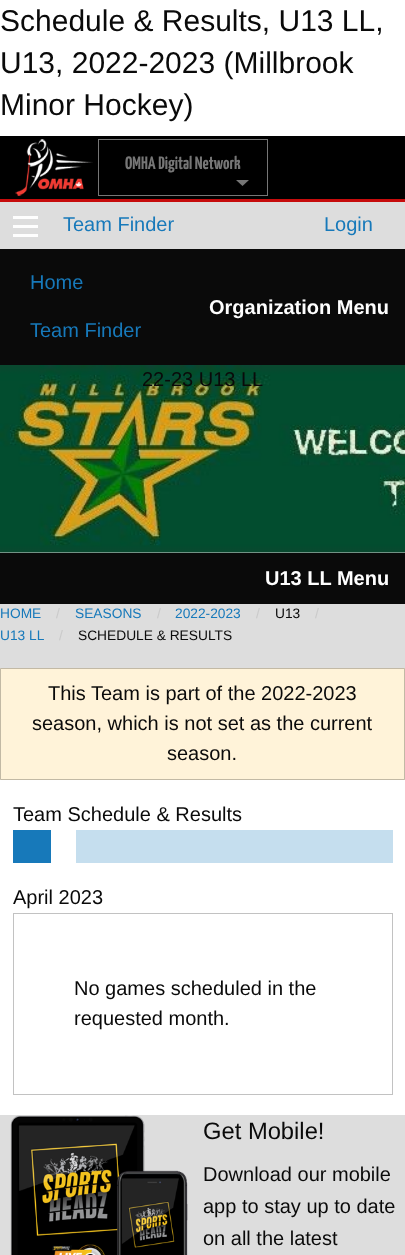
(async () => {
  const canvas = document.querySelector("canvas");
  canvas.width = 405;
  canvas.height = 1255;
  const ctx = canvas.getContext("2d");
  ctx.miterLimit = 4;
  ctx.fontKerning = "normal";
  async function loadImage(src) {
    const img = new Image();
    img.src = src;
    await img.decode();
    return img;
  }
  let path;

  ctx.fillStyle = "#ffffff";
  ctx.fillRect(0, 0, 405, 1255);
  ctx.fillStyle = "#000000";
  ctx.fillRect(0, 136, 405, 63);
  ctx.fillStyle = "#c60c0c";
  ctx.fillRect(0, 199, 405, 3);
  ctx.drawImage(await loadImage("img/1.png"), 15, 139, 78, 57);
  ctx.strokeStyle = "#767676";
  ctx.strokeRect(98.5, 139.5, 169, 56);
  ctx.fillStyle = "#767676";
  path = new Path2D("M236 180H249L242.5 186Z");
  ctx.fill(path);
  for (const [x, y, w, h, color] of [
    [0, 202, 405, 1053, "#dddddd"],
    [13, 234, 25, 3, "#fefefe"],
    [13, 225, 25, 3, "#fefefe"],
    [13, 216, 25, 3, "#fefefe"],
    [0, 249, 405, 116, "#0a0a0a"],
  ]) {
    ctx.fillStyle = color;
    ctx.fillRect(x, y, w, h);
  }
  ctx.drawImage(await loadImage("img/2.png"), 0, 365, 405, 188);
  ctx.fillRect(0, 553, 405, 51);
  ctx.fillStyle = "#ffffff";
  ctx.fillRect(0, 780, 405, 335);
  ctx.fillStyle = "#fff3d9";
  ctx.beginPath();
  ctx.rect(0.5, 668.5, 404, 111);
  ctx.fill();
  ctx.strokeStyle = "#c2b9a5";
  ctx.stroke();
  ctx.fillStyle = "#1779ba";
  ctx.fillRect(13, 830, 38, 33);
  ctx.fillStyle = "#c5deee";
  ctx.fillRect(76, 830, 317, 33);
  ctx.strokeStyle = "#c2c2c2";
  ctx.strokeRect(13.5, 913.5, 379, 181);
  ctx.drawImage(await loadImage("img/3.png"), 10, 1115, 178, 140);
  ctx.font = "30px Liberation Sans";
  ctx.fillStyle = "#0a0a0a";
  for (const [text, x, y] of [
    ["Schedule & Results, U13 LL,", 0, 31],
    ["U13, 2022-2023 (Millbrook", 0, 73],
    ["Minor Hockey)", 0, 115],
  ]) {
    ctx.fillText(text, x, y);
  }
  ctx.font = "200 18px Yanone Kaffeesatz";
  ctx.fillStyle = "#767676";
  ctx.fillText("OMHA Digital Network", 125, 169);
  ctx.font = "20px Liberation Sans";
  ctx.fillStyle = "#1779ba";
  for (const [text, x, y] of [
    ["Team Finder", 63, 231],
    ["Login", 324, 231],
    ["Home", 30, 289],
    ["Team Finder", 30, 337],
  ]) {
    ctx.fillText(text, x, y);
  }
  ctx.font = "bold 20px Liberation Sans";
  ctx.fillStyle = "#fefefe";
  ctx.fillText("Organization Menu", 209, 314);
  ctx.font = "20px Liberation Sans";
  ctx.fillStyle = "#0a0a0a";
  ctx.fillText("22-23 U13 LL", 142, 386);
  ctx.font = "bold 20px Liberation Sans";
  ctx.fillStyle = "#fefefe";
  ctx.fillText("U13 LL Menu", 265, 585);
  ctx.font = "13.75px Liberation Sans";
  ctx.fillStyle = "#1779ba";
  ctx.fillText("HOME", 0, 618);
  ctx.fillStyle = "#cacaca";
  ctx.fillText("/", 56, 618);
  ctx.fillStyle = "#1779ba";
  ctx.fillText("SEASONS", 75, 618);
  ctx.fillStyle = "#cacaca";
  ctx.fillText("/", 157, 618);
  ctx.fillStyle = "#1779ba";
  ctx.fillText("2022-2023", 175, 618);
  ctx.fillStyle = "#cacaca";
  ctx.fillText("/", 256, 618);
  ctx.fillStyle = "#0a0a0a";
  ctx.fillText("U13", 275, 618);
  ctx.fillStyle = "#cacaca";
  ctx.fillText("/", 315, 618);
  ctx.fillStyle = "#1779ba";
  ctx.fillText("U13 LL", 0, 640);
  ctx.fillStyle = "#cacaca";
  ctx.fillText("/", 59, 640);
  ctx.fillStyle = "#0a0a0a";
  ctx.fillText("SCHEDULE & RESULTS", 78, 640);
  ctx.font = "20px Liberation Sans";
  for (const [text, x, y] of [
    ["This Team is part of the 2022-2023", 48, 700],
    ["season, which is not set as the current", 32, 730],
    ["season.", 167, 760],
    ["Team Schedule & Results", 13, 821],
    ["April 2023", 13, 904],
    ["No games scheduled in the", 74, 995],
    ["requested month.", 74, 1025],
  ]) {
    ctx.fillText(text, x, y);
  }
  ctx.font = "23.75px Liberation Sans";
  ctx.fillText("Get Mobile!", 203, 1139);
  ctx.font = "20px Liberation Sans";
  for (const [text, x, y] of [
    ["Download our mobile", 203, 1181],
    ["app to stay up to date", 203, 1213],
    ["on all the latest", 203, 1245],
  ]) {
    ctx.fillText(text, x, y);
  }
})();
